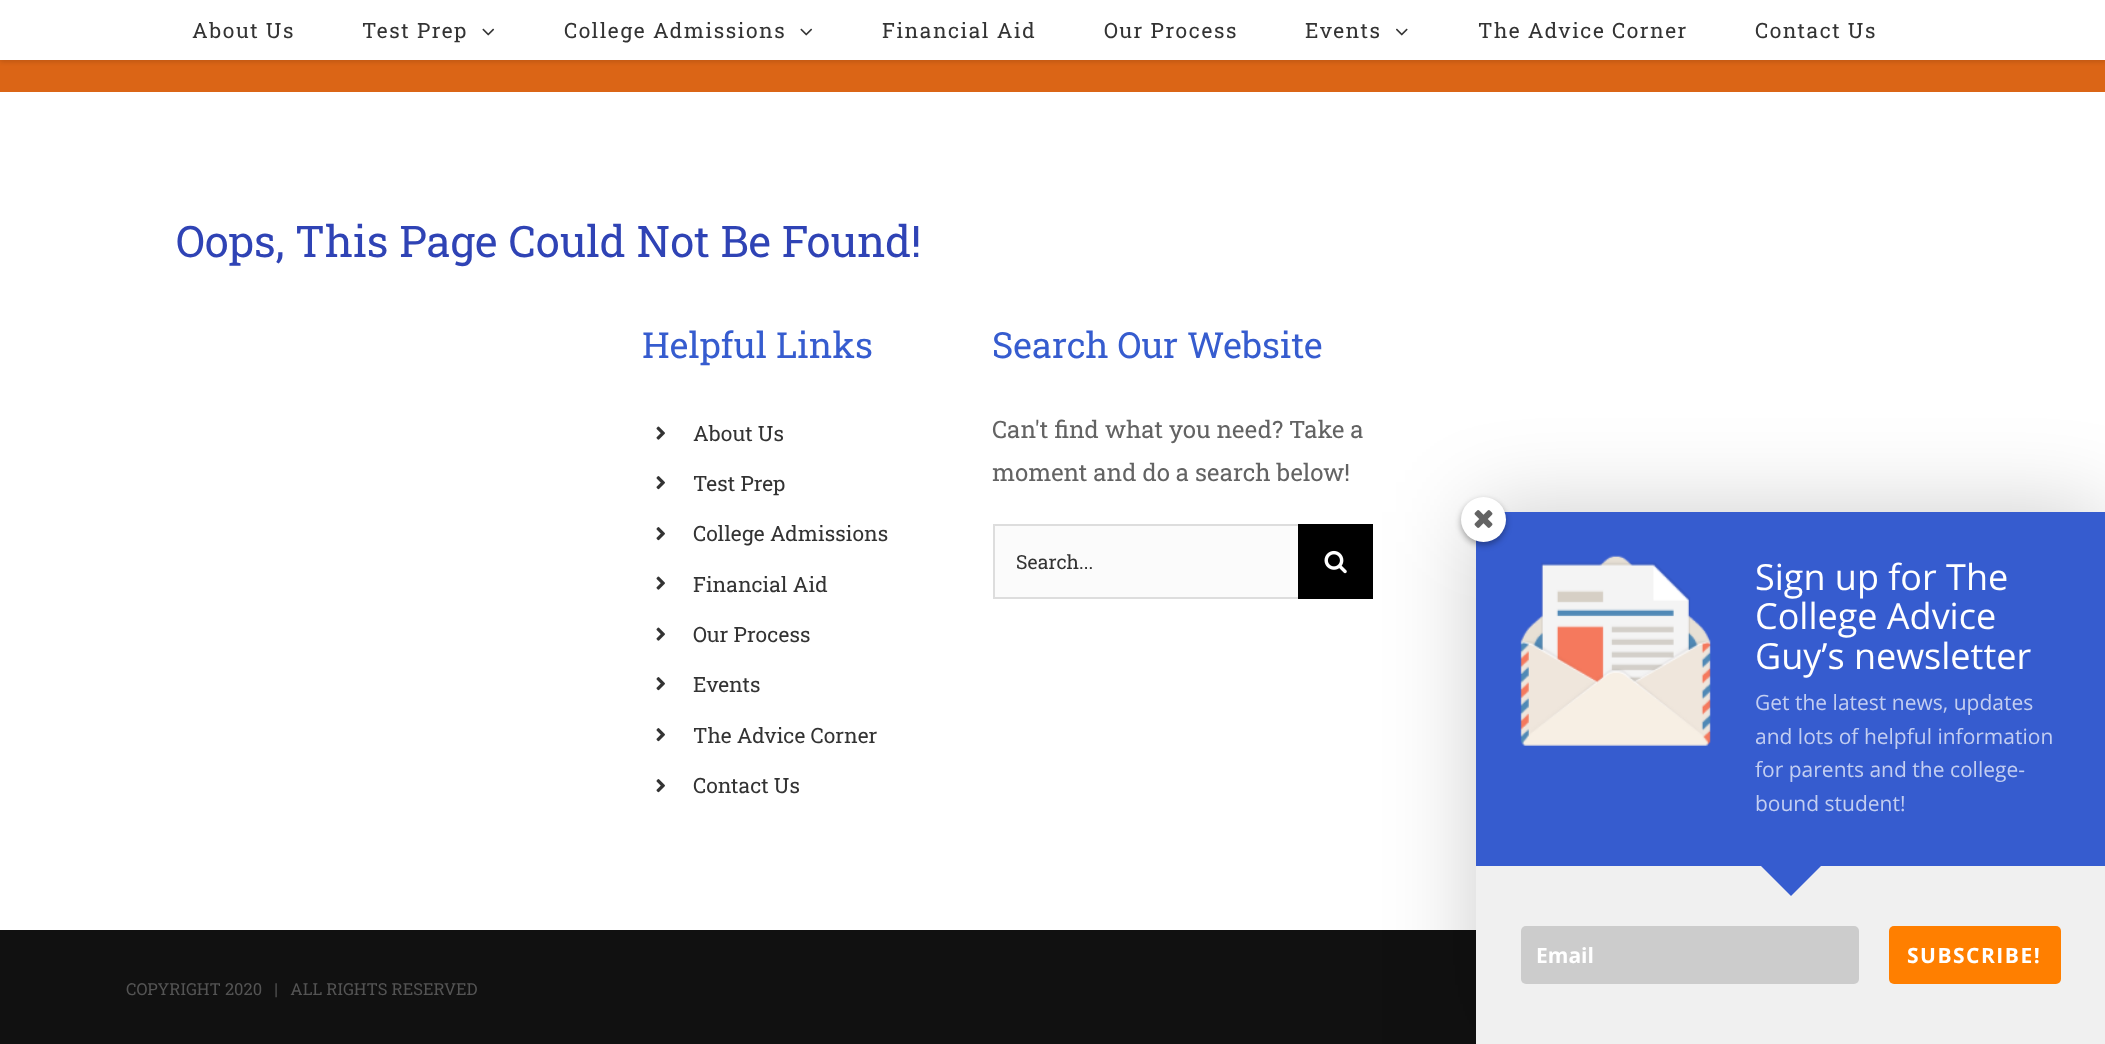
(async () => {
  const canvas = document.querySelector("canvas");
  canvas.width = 2105;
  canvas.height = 1044;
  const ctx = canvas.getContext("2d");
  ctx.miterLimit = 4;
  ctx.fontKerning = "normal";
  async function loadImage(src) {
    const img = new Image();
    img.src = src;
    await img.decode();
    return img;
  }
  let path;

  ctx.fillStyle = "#ffffff";
  ctx.fillRect(0, 0, 2105, 1044);
  ctx.fillStyle = "#db6516";
  ctx.fillRect(0, 60, 2105, 32);
  ctx.fillStyle = "rgba(0, 0, 0, 0.12)";
  ctx.filter = "blur(2px)";
  ctx.beginPath();
  ctx.rect(0, 2, 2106, 60);
  ctx.fill();
  ctx.filter = "none";
  ctx.fillStyle = "#ffffff";
  ctx.fillRect(0, 0, 2105, 60);
  ctx.drawImage(await loadImage("img/1.png"), 482, 28, 13, 8);
  ctx.drawImage(await loadImage("img/1.png"), 800, 28, 13, 8);
  ctx.drawImage(await loadImage("img/2.png"), 1396, 28, 12, 8);
  ctx.drawImage(await loadImage("img/3.png"), 656, 426, 9, 14);
  ctx.drawImage(await loadImage("img/4.png"), 656, 476, 9, 14);
  ctx.drawImage(await loadImage("img/4.png"), 656, 527, 9, 14);
  ctx.drawImage(await loadImage("img/3.png"), 656, 576, 9, 14);
  ctx.drawImage(await loadImage("img/3.png"), 656, 627, 9, 14);
  ctx.drawImage(await loadImage("img/4.png"), 656, 677, 9, 14);
  ctx.drawImage(await loadImage("img/4.png"), 656, 728, 9, 14);
  ctx.drawImage(await loadImage("img/4.png"), 656, 779, 9, 14);
  for (const [x, y, w, h, color] of [
    [995, 526, 303, 71, "#fbfbfb"],
    [993, 524, 305, 2, "#dddddd"],
    [993, 597, 305, 2, "#dddddd"],
    [993, 524, 2, 75, "#dddddd"],
    [1298, 524, 75, 75, "#000000"],
  ]) {
    ctx.fillStyle = color;
    ctx.fillRect(x, y, w, h);
  }
  ctx.drawImage(await loadImage("img/5.png"), 1324, 550, 23, 24);
  ctx.fillStyle = "#111111";
  ctx.fillRect(0, 930, 1476, 114);
  ctx.fillStyle = "rgba(0, 0, 0, 0.2)";
  ctx.filter = "blur(45px)";
  ctx.beginPath();
  ctx.rect(1476, 512, 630, 532);
  ctx.fill();
  ctx.filter = "none";
  ctx.fillStyle = "#365ccf";
  ctx.fillRect(1476, 512, 629, 354);
  ctx.fillStyle = "rgba(0, 0, 0, 0.34)";
  ctx.filter = "blur(3px)";
  ctx.beginPath();
  ctx.roundRect(1461, 500, 45, 45, 22.5);
  ctx.fill();
  ctx.filter = "none";
  ctx.fillStyle = "#ffffff";
  ctx.beginPath();
  ctx.arc(1483.5, 519.5, 22.5, 0, Math.PI * 2);
  ctx.fill();
  ctx.drawImage(await loadImage("img/6.png"), 1474, 510, 19, 18);
  ctx.drawImage(await loadImage("img/7.png"), 1520, 555, 191, 191);
  ctx.fillStyle = "#f0f0f0";
  ctx.fillRect(1476, 866, 629, 178);
  ctx.fillStyle = "#365ccf";
  path = new Path2D("M1761 866H1821L1791 896Z");
  ctx.fill(path);
  ctx.fillStyle = "#cccccc";
  ctx.beginPath();
  ctx.roundRect(1521, 926, 338, 58, 5);
  ctx.fill();
  ctx.fillStyle = "#ff7f00";
  ctx.beginPath();
  ctx.roundRect(1889, 926, 172, 58, 5);
  ctx.fill();
  ctx.letterSpacing = "1.5px";
  ctx.font = "21px Roboto Slab";
  ctx.fillStyle = "#333333";
  for (const [text, x, y] of [
    ["About Us", 192, 38],
    ["Test Prep", 362, 38],
    ["College Admissions", 564, 38],
    ["Financial Aid", 882, 38],
    ["Our Process", 1104, 38],
    ["Events", 1305, 38],
    ["The Advice Corner", 1478, 38],
    ["Contact Us", 1755, 38],
  ]) {
    ctx.fillText(text, x, y);
  }
  ctx.letterSpacing = "0px";
  ctx.font = "43.5px Roboto Slab";
  ctx.fillStyle = "#2f43b5";
  ctx.fillText("Oops, This Page Could Not Be Found!", 176, 257);
  ctx.font = "36px Roboto Slab";
  ctx.fillStyle = "#365ccf";
  ctx.fillText("Helpful Links", 642, 358);
  ctx.font = "21px Roboto Slab";
  ctx.fillStyle = "#333333";
  for (const [text, x, y] of [
    ["About Us", 693, 441],
    ["Test Prep", 693, 491],
    ["College Admissions", 693, 541],
    ["Financial Aid", 693, 592],
    ["Our Process", 693, 642],
    ["Events", 693, 692],
    ["The Advice Corner", 693, 743],
    ["Contact Us", 693, 793],
  ]) {
    ctx.fillText(text, x, y);
  }
  ctx.font = "36px Roboto Slab";
  ctx.fillStyle = "#365ccf";
  ctx.fillText("Search Our Website", 992, 358);
  ctx.font = "24px Roboto Slab";
  ctx.fillStyle = "#636363";
  ctx.fillText("Can't find what you need? Take a", 992, 438);
  ctx.fillText("moment and do a search below!", 992, 481);
  ctx.font = "19.5px Roboto Slab";
  ctx.fillStyle = "#333333";
  ctx.fillText("Search...", 1016, 569);
  ctx.font = "16.5px Roboto Slab";
  ctx.fillStyle = "#545454";
  ctx.fillText("COPYRIGHT 2020   |   ALL RIGHTS RESERVED", 126, 995);
  ctx.font = "36px Open Sans";
  ctx.fillStyle = "#ffffff";
  for (const [text, x, y] of [
    ["Sign up for The", 1755, 590],
    ["College Advice", 1755, 629],
    ["Guy’s newsletter", 1755, 669],
  ]) {
    ctx.fillText(text, x, y);
  }
  ctx.font = "21px Open Sans";
  ctx.fillStyle = "#c3cef1";
  for (const [text, x, y] of [
    ["Get the latest news, updates", 1755, 710],
    ["and lots of helpful information", 1755, 744],
    ["for parents and the college-", 1755, 777],
    ["bound student!", 1755, 811],
  ]) {
    ctx.fillText(text, x, y);
  }
  ctx.font = "bold 21px Open Sans";
  ctx.fillStyle = "#ffffff";
  ctx.fillText("Email", 1536, 963);
  ctx.letterSpacing = "1.5px";
  ctx.fillText("SUBSCRIBE!", 1907, 963);
})();
